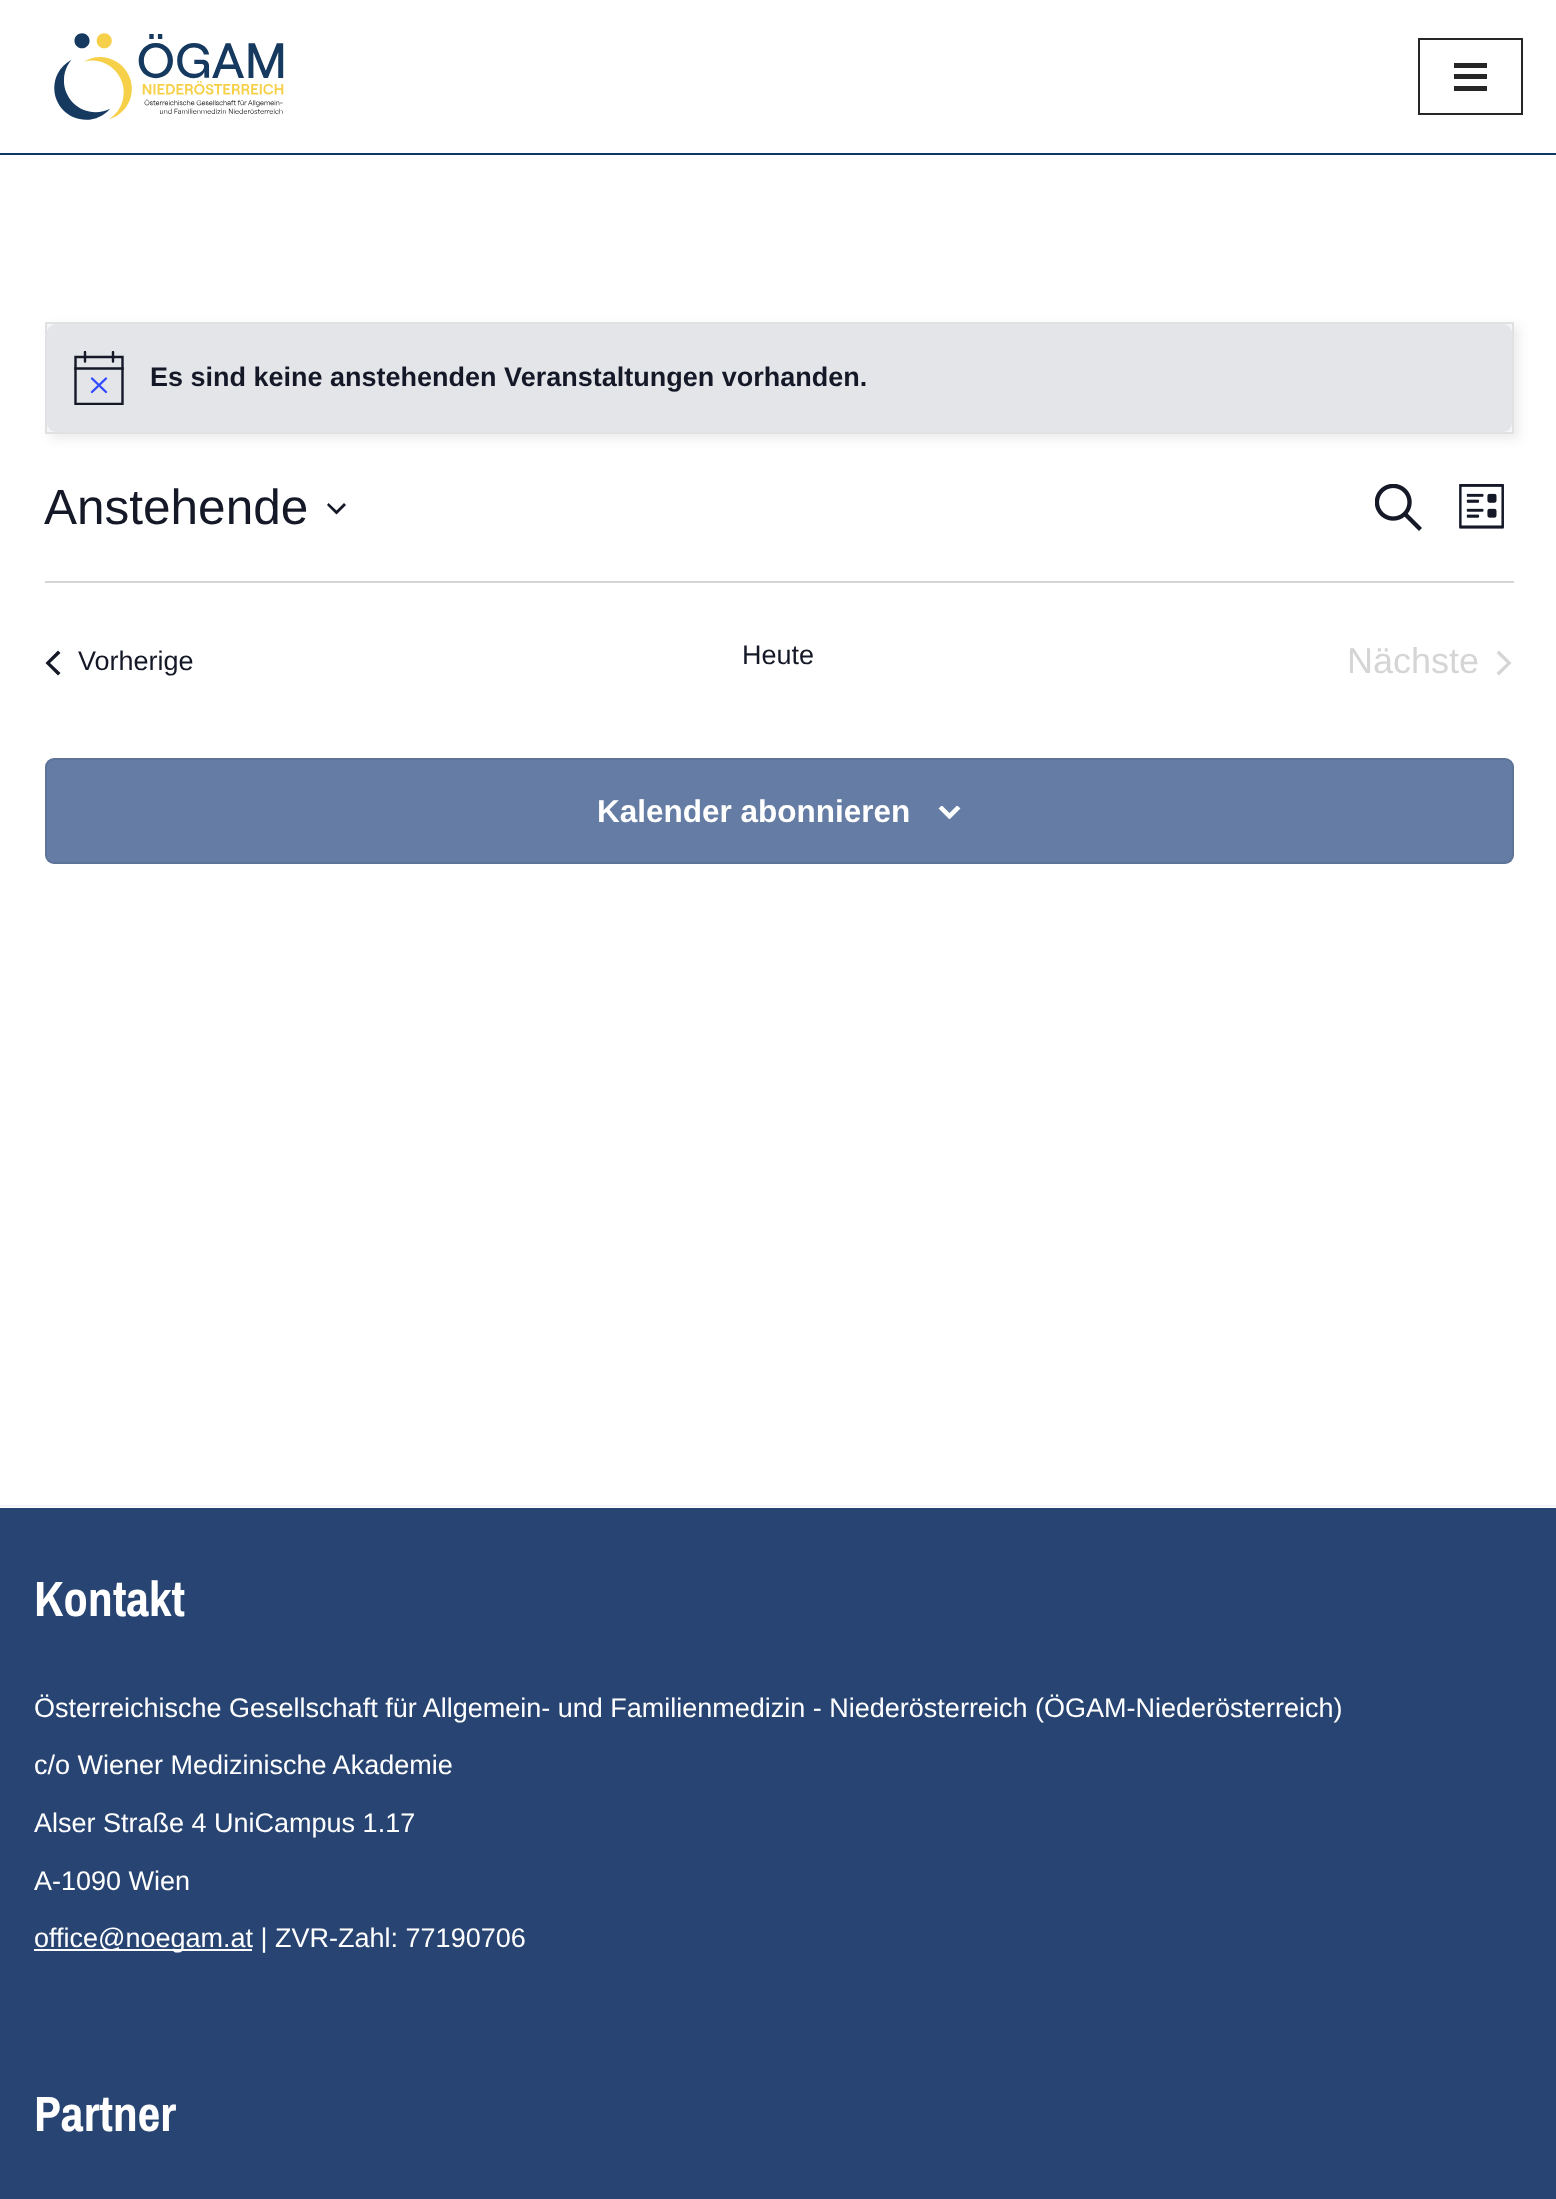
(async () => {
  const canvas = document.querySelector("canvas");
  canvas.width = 1556;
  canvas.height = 2199;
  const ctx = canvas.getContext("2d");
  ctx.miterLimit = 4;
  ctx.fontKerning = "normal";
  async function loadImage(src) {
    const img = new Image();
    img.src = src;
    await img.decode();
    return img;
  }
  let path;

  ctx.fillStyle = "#ffffff";
  ctx.fillRect(0, 0, 1556, 2199);
  ctx.fillStyle = "#0d3861";
  ctx.fillRect(0, 153, 1556, 2);
  ctx.drawImage(await loadImage("img/1.png"), 54, 33, 230, 87);
  ctx.strokeStyle = "#272626";
  ctx.lineWidth = 2;
  ctx.strokeRect(1419, 39, 103, 75);
  for (const [x, y, w, h, color] of [
    [1454, 63, 33, 5, "#272626"],
    [1454, 74, 33, 5, "#272626"],
    [1454, 86, 33, 5, "#272626"],
  ]) {
    ctx.fillStyle = color;
    ctx.fillRect(x, y, w, h);
  }
  ctx.fillStyle = "rgba(0, 0, 0, 0.08)";
  ctx.filter = "blur(5.5px)";
  ctx.beginPath();
  ctx.rect(50, 326, 1469, 113);
  ctx.fill();
  ctx.filter = "none";
  ctx.fillStyle = "#f4f5f7";
  ctx.beginPath();
  ctx.rect(46, 323, 1467, 110);
  ctx.fill();
  ctx.strokeStyle = "#e0e1e3";
  ctx.stroke();
  ctx.fillStyle = "#e4e5e9";
  ctx.beginPath();
  ctx.roundRect(47, 324, 1465, 108, 9);
  ctx.fill();
  ctx.save();
  ctx.beginPath();
  ctx.rect(74, 351, 50, 54);
  ctx.clip();
  path = new Path2D("M75.5 357H122.5V404H75.5Z");
  ctx.strokeStyle = "#141827";
  ctx.lineWidth = 2.4;
  ctx.stroke(path);
  ctx.restore();
  path = new Path2D("M92 378.5L106 392M106 378.5L92 392");
  ctx.strokeStyle = "#334aff";
  ctx.lineWidth = 2.4;
  ctx.lineCap = "round";
  ctx.stroke(path);
  ctx.save();
  ctx.beginPath();
  ctx.rect(74, 351, 50, 54);
  ctx.clip();
  path = new Path2D("M85 352V361.5M113 352V361.5");
  ctx.strokeStyle = "#141827";
  ctx.stroke(path);
  ctx.restore();
  path = new Path2D("M75.5 368.5H122.5");
  ctx.strokeStyle = "#141827";
  ctx.lineCap = "square";
  ctx.stroke(path);
  ctx.fillStyle = "#141827";
  path = new Path2D("M328.5 503L336.5 510.5L344 503L346 505L336.5 514.5L327 505Z");
  ctx.fill(path, "evenodd");
  ctx.drawImage(await loadImage("img/2.png"), 1375, 484, 47, 47);
  ctx.drawImage(await loadImage("img/3.png"), 1459, 484, 45, 45);
  ctx.fillStyle = "#d5d5d5";
  ctx.fillRect(45, 581, 1469, 2);
  ctx.fillStyle = "#141827";
  path = new Path2D("M60.5 673L58 675.5L45.5 663L58 650.5L60.5 653L50 663Z");
  ctx.fill(path);
  ctx.fillStyle = "#d5d5d5";
  path = new Path2D("M1496.5 653L1499 650.5L1511.5 663L1499 675.5L1496.5 673L1507 663Z");
  ctx.fill(path);
  ctx.fillStyle = "#657da4";
  ctx.beginPath();
  ctx.roundRect(45, 758, 1469, 106, 9);
  ctx.fill();
  ctx.beginPath();
  ctx.roundRect(46, 759, 1467, 104, 8);
  ctx.strokeStyle = "rgba(0, 0, 0, 0.08)";
  ctx.lineWidth = 2;
  ctx.stroke();
  ctx.drawImage(await loadImage("img/4.png"), 938, 806, 23, 13);
  for (const [x, y, w, h, color] of [
    [0, 1505, 1556, 2, "#f4f5f7"],
    [0, 1508, 1556, 691, "#274472"],
    [34, 1949, 218, 2, "#ffffff"],
  ]) {
    ctx.fillStyle = color;
    ctx.fillRect(x, y, w, h);
  }
  ctx.font = "bold 27px Liberation Sans";
  ctx.fillStyle = "#141827";
  ctx.fillText("Es sind keine anstehenden Veranstaltungen vorhanden.", 150, 386);
  ctx.font = "49.5px Liberation Sans";
  ctx.fillText("Anstehende", 44, 524);
  ctx.font = "27px Liberation Sans";
  ctx.fillText("Vorherige", 78, 670);
  ctx.fillText("Heute", 742, 664);
  ctx.font = "36px Liberation Sans";
  ctx.fillStyle = "#d5d5d5";
  ctx.fillText("Nächste", 1347, 673);
  ctx.font = "bold 31.5px Liberation Sans";
  ctx.fillStyle = "#ffffff";
  ctx.fillText("Kalender abonnieren", 597, 822);
  ctx.font = "bold 49.5px Archivo Narrow";
  ctx.fillText("Kontakt", 34, 1616);
  ctx.font = "27px Liberation Sans";
  for (const [text, x, y] of [
    ["Österreichische Gesellschaft für Allgemein- und Familienmedizin - Niederösterreich (ÖGAM-Niederösterreich)", 34, 1717],
    ["c/o Wiener Medizinische Akademie", 34, 1774],
    ["Alser Straße 4 UniCampus 1.17", 34, 1832],
    ["A-1090 Wien", 34, 1890],
    ["office@noegam.at | ZVR-Zahl: 77190706", 34, 1947],
  ]) {
    ctx.fillText(text, x, y);
  }
  ctx.font = "bold 49.5px Archivo Narrow";
  ctx.fillText("Partner", 34, 2131);
})();
